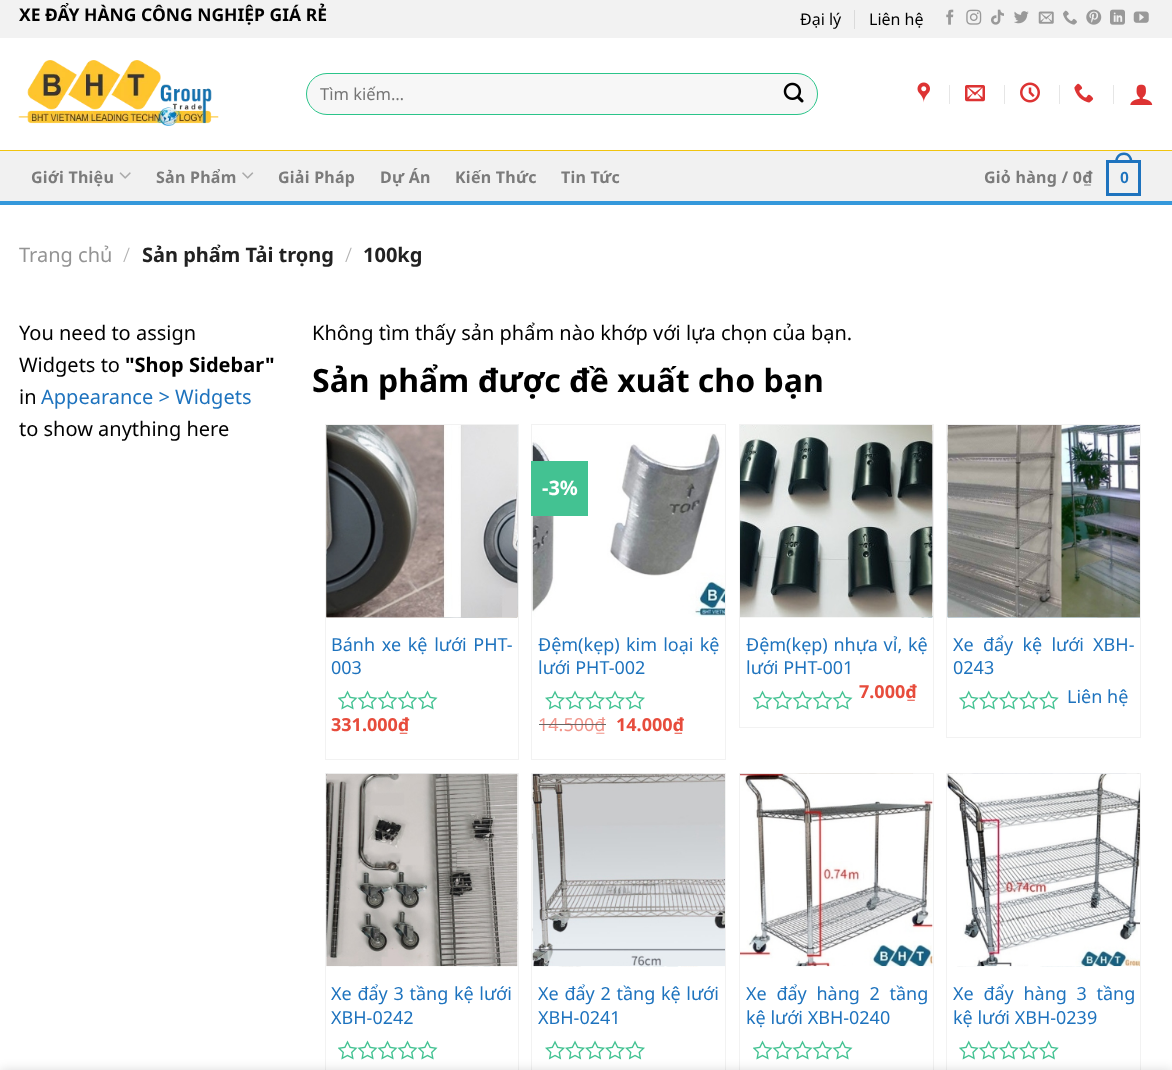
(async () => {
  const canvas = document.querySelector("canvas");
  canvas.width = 1172;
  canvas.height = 1070;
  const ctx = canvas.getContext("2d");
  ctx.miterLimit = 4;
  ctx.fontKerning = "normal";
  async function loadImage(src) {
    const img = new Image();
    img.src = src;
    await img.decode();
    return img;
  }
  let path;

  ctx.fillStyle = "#ffffff";
  ctx.fillRect(0, 0, 1172, 1070);
  ctx.fillStyle = "#f2f2f2";
  ctx.fillRect(0, 0, 1172, 38);
  ctx.fillStyle = "#dadada";
  ctx.fillRect(854, 10, 1, 19);
  ctx.drawImage(await loadImage("img/1.png"), 946, 9, 8, 16);
  ctx.drawImage(await loadImage("img/2.png"), 966, 9, 16, 16);
  ctx.drawImage(await loadImage("img/3.png"), 991, 9, 13, 16);
  ctx.drawImage(await loadImage("img/4.png"), 1014, 11, 15, 13);
  ctx.drawImage(await loadImage("img/5.png"), 1038, 11, 16, 13);
  ctx.drawImage(await loadImage("img/6.png"), 1063, 10, 14, 15);
  ctx.drawImage(await loadImage("img/7.png"), 1086, 9, 16, 16);
  ctx.drawImage(await loadImage("img/8.png"), 1110, 9, 15, 16);
  ctx.drawImage(await loadImage("img/9.png"), 1133, 11, 16, 12);
  ctx.drawImage(await loadImage("img/10.png"), 18, 60, 201, 66);
  ctx.fillStyle = "#f7f7f7";
  ctx.beginPath();
  ctx.roundRect(306.5, 73.5, 511, 41, 20.5);
  ctx.fill();
  ctx.strokeStyle = "#2bc48a";
  ctx.stroke();
  ctx.drawImage(await loadImage("img/11.png"), 783, 82, 21, 21);
  ctx.drawImage(await loadImage("img/12.png"), 917, 82, 13, 21);
  ctx.fillStyle = "#e6e6e6";
  ctx.fillRect(949, 85, 1, 19);
  ctx.drawImage(await loadImage("img/13.png"), 965, 85, 20, 17);
  ctx.fillRect(1004, 85, 1, 19);
  ctx.drawImage(await loadImage("img/14.png"), 1020, 82, 20, 21);
  ctx.fillRect(1059, 85, 1, 19);
  ctx.drawImage(await loadImage("img/15.png"), 1074, 83, 20, 20);
  ctx.fillRect(1113, 85, 1, 19);
  ctx.drawImage(await loadImage("img/16.png"), 1130, 84, 23, 21);
  for (const [x, y, w, h, color] of [
    [0, 151, 1172, 50, "#f1f1f1"],
    [0, 150, 1172, 1, "#f1c40f"],
    [0, 201, 1172, 4, "#3498db"],
  ]) {
    ctx.fillStyle = color;
    ctx.fillRect(x, y, w, h);
  }
  ctx.drawImage(await loadImage("img/17.png"), 119, 172, 12, 7);
  ctx.drawImage(await loadImage("img/18.png"), 242, 172, 12, 7);
  ctx.strokeStyle = "#1e73be";
  ctx.lineWidth = 3;
  ctx.strokeRect(1107.5, 161.5, 32, 33);
  ctx.fillStyle = "#1e73be";
  path = new Path2D("M1124 152.5C1129.5 152.5 1132.5 157 1132.5 162.5H1115C1115 157 1118 152.5 1124 152.5ZM1124 155C1128 155 1130 158.5 1130 162.5H1117.5C1117.5 158.5 1119.5 155 1124 155Z");
  ctx.fill(path, "evenodd");
  ctx.strokeStyle = "#f2f2f2";
  ctx.lineWidth = 1;
  ctx.strokeRect(325.5, 424.5, 193, 335);
  ctx.drawImage(await loadImage("img/19.png"), 326, 425, 192, 193);
  ctx.drawImage(await loadImage("img/20.png"), 326, 425, 192, 193);
  ctx.drawImage(await loadImage("img/21.png"), 338, 690, 100, 20);
  ctx.strokeRect(531.5, 424.5, 194, 335);
  ctx.drawImage(await loadImage("img/22.png"), 532, 433, 193, 184);
  ctx.fillStyle = "#43c292";
  ctx.fillRect(531, 461, 57, 55);
  ctx.drawImage(await loadImage("img/23.png"), 545, 690, 100, 20);
  ctx.strokeRect(739.5, 424.5, 194, 303);
  ctx.drawImage(await loadImage("img/25.png"), 753, 425, 180, 193);
  ctx.drawImage(await loadImage("img/24.png"), 740, 425, 193, 193);
  ctx.drawImage(await loadImage("img/21.png"), 753, 690, 100, 20);
  ctx.strokeRect(946.5, 424.5, 194, 313);
  ctx.drawImage(await loadImage("img/26.png"), 947, 425, 193, 193);
  ctx.drawImage(await loadImage("img/27.png"), 947, 425, 193, 193);
  ctx.drawImage(await loadImage("img/28.png"), 959, 690, 100, 20);
  ctx.strokeRect(325.5, 773.5, 193, 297);
  ctx.drawImage(await loadImage("img/29.png"), 326, 773, 192, 194);
  ctx.drawImage(await loadImage("img/30.png"), 326, 773, 192, 194);
  ctx.drawImage(await loadImage("img/21.png"), 338, 1040, 100, 20);
  ctx.strokeRect(531.5, 773.5, 194, 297);
  ctx.drawImage(await loadImage("img/31.png"), 532, 773, 193, 194);
  ctx.drawImage(await loadImage("img/32.png"), 532, 773, 193, 194);
  ctx.drawImage(await loadImage("img/23.png"), 545, 1040, 100, 20);
  ctx.strokeRect(739.5, 773.5, 194, 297);
  ctx.drawImage(await loadImage("img/33.png"), 740, 773, 181, 194);
  ctx.drawImage(await loadImage("img/34.png"), 740, 773, 193, 194);
  ctx.drawImage(await loadImage("img/21.png"), 753, 1040, 100, 20);
  ctx.strokeRect(946.5, 773.5, 194, 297);
  ctx.drawImage(await loadImage("img/35.png"), 947, 773, 193, 194);
  ctx.drawImage(await loadImage("img/36.png"), 947, 773, 193, 194);
  ctx.drawImage(await loadImage("img/28.png"), 959, 1040, 100, 20);
  ctx.fillStyle = "rgba(0, 0, 0, 0.14)";
  ctx.filter = "blur(5.5px)";
  ctx.beginPath();
  ctx.rect(0, 1070, 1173, 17);
  ctx.fill();
  ctx.filter = "none";
  ctx.font = "bold 17.5px Noto Sans";
  ctx.fillStyle = "#000000";
  ctx.fillText("XE ĐẨY HÀNG CÔNG NGHIỆP GIÁ RẺ", 19, 21);
  ctx.font = "16px Noto Sans";
  ctx.fillText("Đại lý", 800, 25);
  ctx.fillText("Liên hệ", 869, 25);
  ctx.font = "16.5px Noto Sans";
  ctx.fillStyle = "#757575";
  ctx.fillText("Tìm kiếm…", 320, 100);
  ctx.letterSpacing = "0.25px";
  ctx.font = "bold 16px Noto Sans";
  ctx.fillStyle = "#7b7b7b";
  for (const [text, x, y] of [
    ["Giới Thiệu", 31, 183],
    ["Sản Phẩm", 156, 183],
    ["Giải Pháp", 278, 183],
    ["Dự Án", 380, 183],
    ["Kiến Thức", 455, 183],
    ["Tin Tức", 561, 183],
    ["Giỏ hàng / 0₫", 984, 183],
  ]) {
    ctx.fillText(text, x, y);
  }
  ctx.font = "bold 16px Liberation Sans";
  ctx.fillStyle = "#1e73be";
  ctx.fillText("0", 1120, 183);
  ctx.letterSpacing = "0px";
  ctx.font = "20px Noto Sans";
  ctx.fillStyle = "#949494";
  ctx.fillText("Trang chủ", 19, 262);
  ctx.font = "300 20px Noto Sans";
  ctx.fillStyle = "#b2b2b2";
  ctx.fillText("/", 123, 262);
  ctx.font = "bold 20px Noto Sans";
  ctx.fillStyle = "#222222";
  ctx.fillText("Sản phẩm Tải trọng", 142, 262);
  ctx.font = "300 20px Noto Sans";
  ctx.fillStyle = "#b2b2b2";
  ctx.fillText("/", 345, 262);
  ctx.font = "bold 20px Noto Sans";
  ctx.fillStyle = "#222222";
  ctx.fillText("100kg", 363, 262);
  ctx.font = "20px Noto Sans";
  ctx.fillStyle = "#000000";
  ctx.fillText("You need to assign", 19, 340);
  ctx.fillText("Widgets to", 19, 372);
  ctx.font = "bold 20px Noto Sans";
  ctx.fillText("\"Shop Sidebar\"", 125, 372);
  ctx.font = "20px Noto Sans";
  ctx.fillText("in", 19, 404);
  ctx.fillStyle = "#1e73be";
  ctx.fillText("Appearance > Widgets", 41, 404);
  ctx.fillStyle = "#000000";
  ctx.fillText("to show anything here", 19, 436);
  ctx.fillText("Không tìm thấy sản phẩm nào khớp với lựa chọn của bạn.", 312, 340);
  ctx.font = "bold 32px Noto Sans";
  ctx.fillText("Sản phẩm được đề xuất cho bạn", 312, 392);
  ctx.wordSpacing = "2px";
  ctx.font = "18px Noto Sans";
  ctx.fillStyle = "#1e73be";
  ctx.fillText("Bánh xe kệ lưới PHT-", 331, 651);
  ctx.wordSpacing = "0px";
  ctx.fillText("003", 331, 674);
  ctx.font = "bold 18px Noto Sans";
  ctx.fillStyle = "#e74c3c";
  ctx.fillText("331.000₫", 331, 731);
  ctx.font = "bold 20px Noto Sans";
  ctx.fillStyle = "#ffffff";
  ctx.fillText("-3%", 542, 495);
  ctx.wordSpacing = "1.5px";
  ctx.font = "18px Noto Sans";
  ctx.fillStyle = "#1e73be";
  ctx.fillText("Đệm(kẹp) kim loại kệ", 538, 651);
  ctx.wordSpacing = "0px";
  ctx.fillText("lưới PHT-002", 538, 674);
  ctx.fillStyle = "#f1948a";
  ctx.fillText("14.500₫", 538, 731);
  ctx.fillStyle = "#666666";
  ctx.fillRect(539, 724, 67, 1);
  ctx.font = "bold 18px Noto Sans";
  ctx.fillStyle = "#e74c3c";
  ctx.fillText("14.000₫", 616, 731);
  ctx.wordSpacing = "1px";
  ctx.font = "18px Noto Sans";
  ctx.fillStyle = "#1e73be";
  ctx.fillText("Đệm(kẹp) nhựa vỉ, kệ", 746, 651);
  ctx.wordSpacing = "0px";
  ctx.fillText("lưới PHT-001", 746, 674);
  ctx.font = "bold 18px Noto Sans";
  ctx.fillStyle = "#e74c3c";
  ctx.fillText("7.000₫", 859, 698);
  ctx.wordSpacing = "4.5px";
  ctx.font = "18px Noto Sans";
  ctx.fillStyle = "#1e73be";
  ctx.fillText("Xe đẩy kệ lưới XBH-", 953, 651);
  ctx.wordSpacing = "0px";
  ctx.fillText("0243", 953, 674);
  ctx.fillText("Liên hệ", 1067, 703);
  ctx.wordSpacing = "1px";
  ctx.fillText("Xe đẩy 3 tầng kệ lưới", 331, 1000);
  ctx.wordSpacing = "0px";
  ctx.fillText("XBH-0242", 331, 1024);
  ctx.wordSpacing = "1px";
  ctx.fillText("Xe đẩy 2 tầng kệ lưới", 538, 1000);
  ctx.wordSpacing = "0px";
  ctx.fillText("XBH-0241", 538, 1024);
  ctx.wordSpacing = "5px";
  ctx.fillText("Xe đẩy hàng 2 tầng", 746, 1000);
  ctx.wordSpacing = "0px";
  ctx.fillText("kệ lưới XBH-0240", 746, 1024);
  ctx.wordSpacing = "5px";
  ctx.fillText("Xe đẩy hàng 3 tầng", 953, 1000);
  ctx.wordSpacing = "0px";
  ctx.fillText("kệ lưới XBH-0239", 953, 1024);
})();
